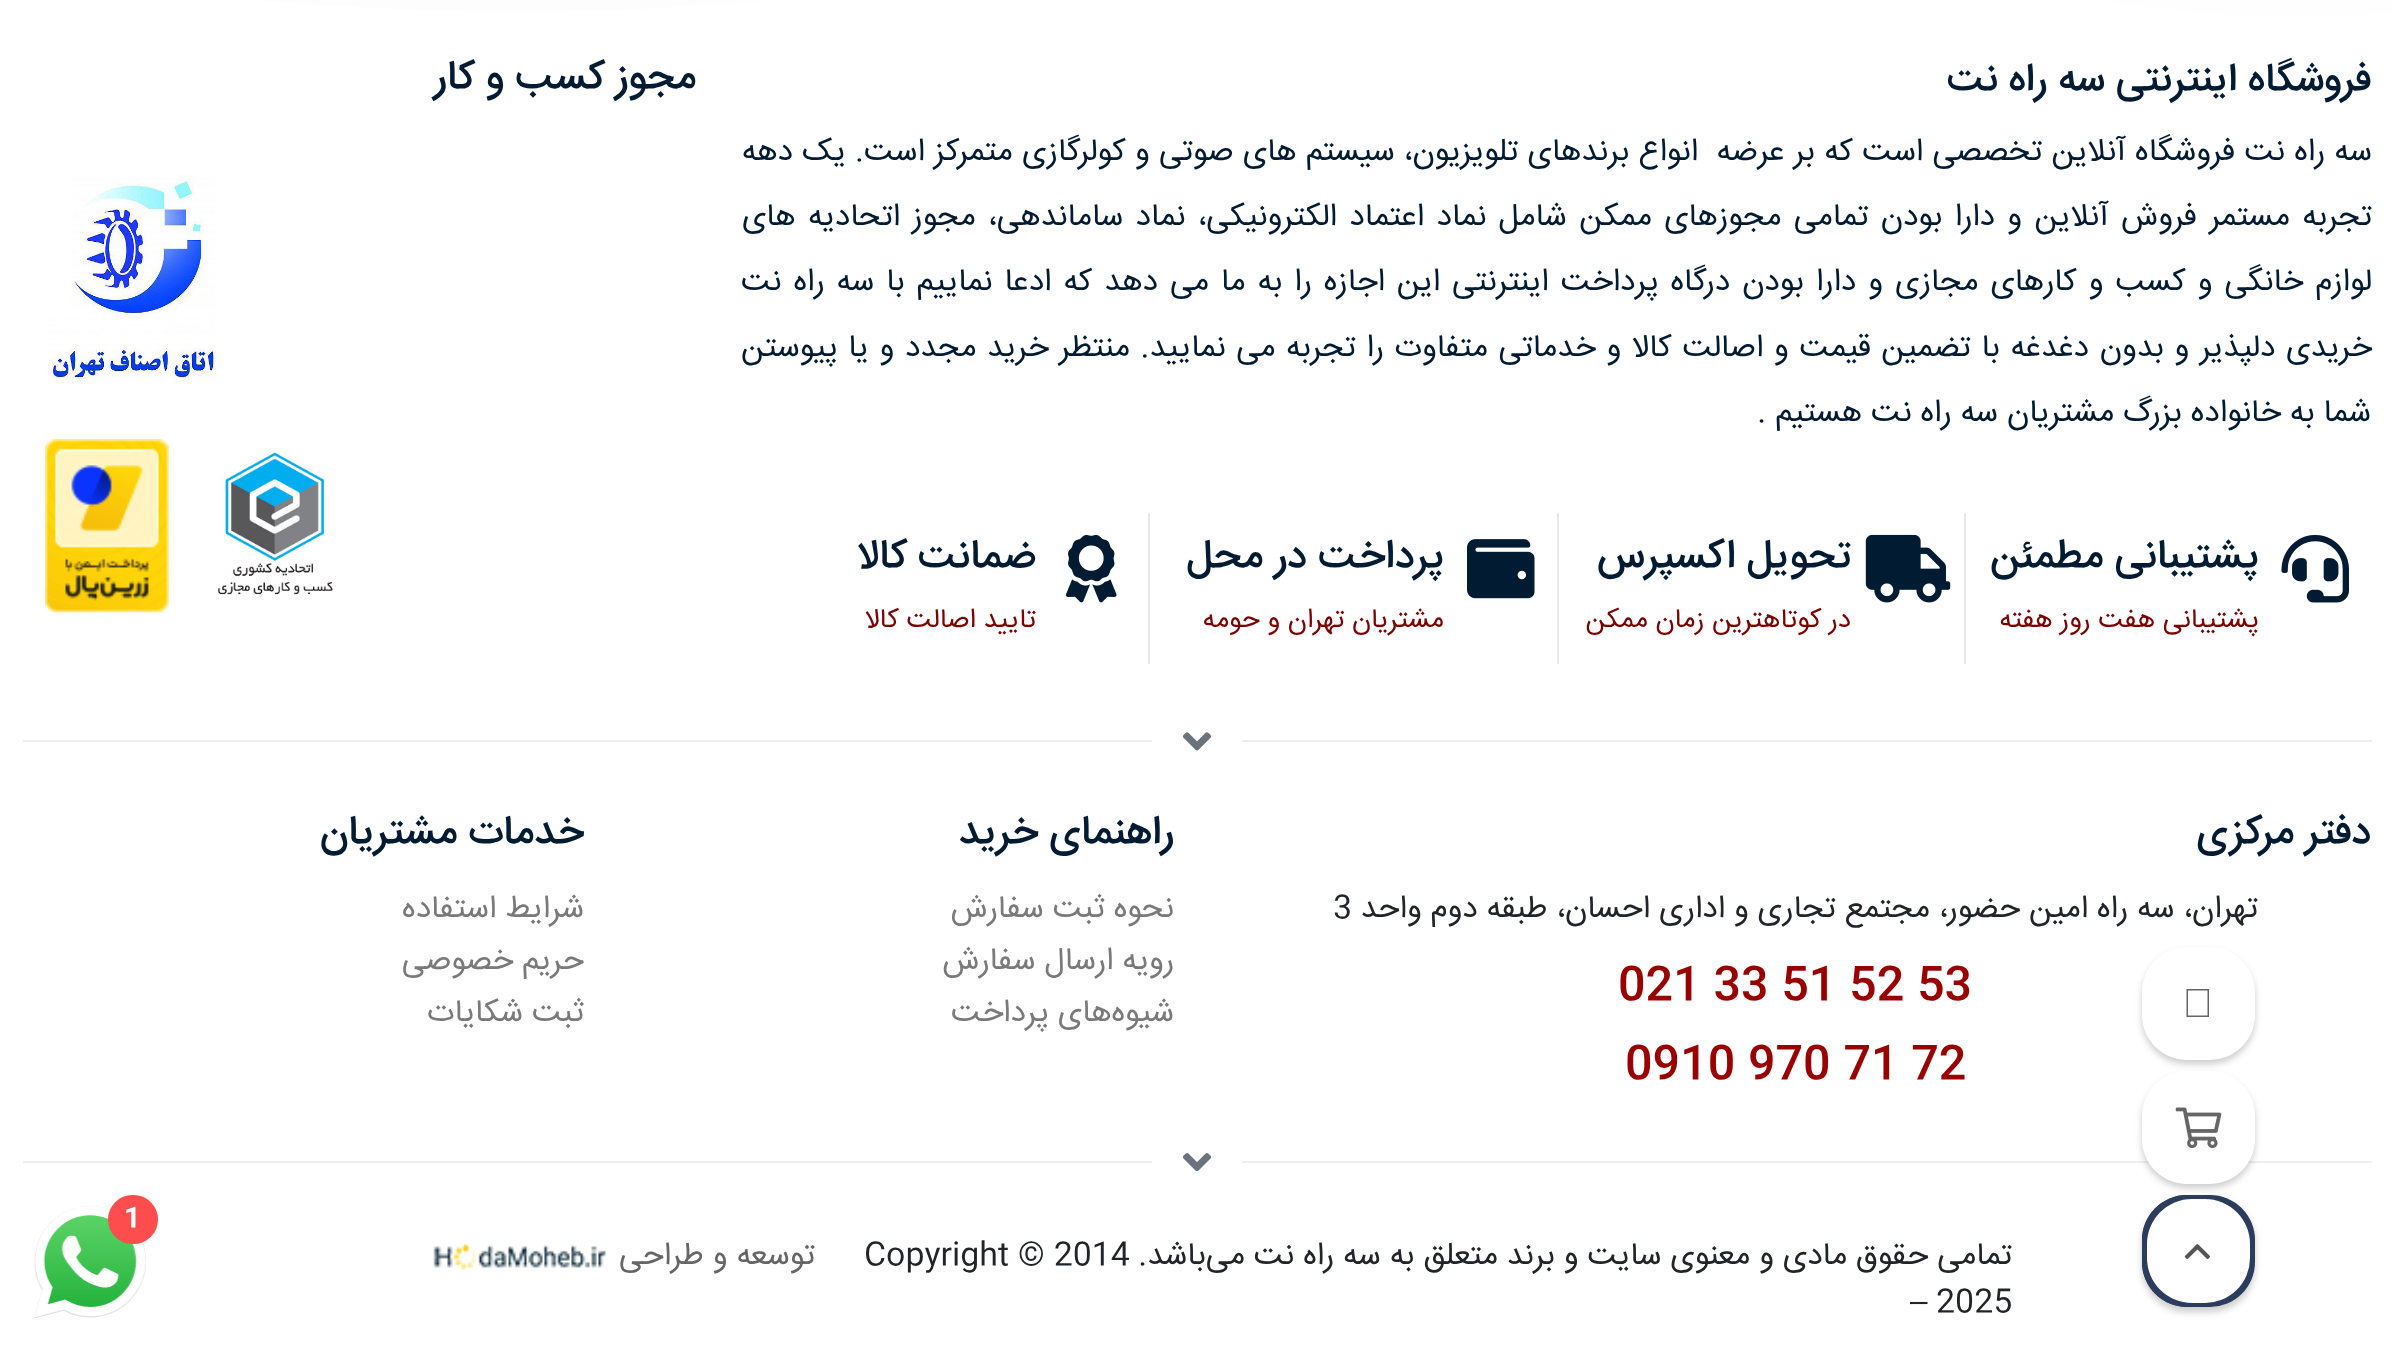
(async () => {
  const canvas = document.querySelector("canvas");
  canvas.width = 2392;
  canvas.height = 1351;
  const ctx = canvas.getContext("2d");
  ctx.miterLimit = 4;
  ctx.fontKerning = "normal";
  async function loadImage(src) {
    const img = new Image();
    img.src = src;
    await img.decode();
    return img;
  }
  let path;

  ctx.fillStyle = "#fafafa";
  ctx.fillRect(0, 0, 2392, 1351);
  ctx.drawImage(await loadImage("img/1.png"), 0, 0, 2392, 36);
  ctx.fillStyle = "#ffffff";
  ctx.fillRect(0, 36, 2392, 1315);
  ctx.fillStyle = "#e7e7e7";
  ctx.fillRect(1964, 513, 2, 151);
  ctx.drawImage(await loadImage("img/2.png"), 2281, 534, 68, 69);
  ctx.fillRect(1557, 513, 2, 151);
  ctx.drawImage(await loadImage("img/3.png"), 1865, 534, 86, 69);
  ctx.fillRect(1148, 513, 2, 151);
  ctx.drawImage(await loadImage("img/4.png"), 1467, 539, 68, 60);
  ctx.drawImage(await loadImage("img/5.png"), 1066, 535, 51, 68);
  ctx.drawImage(await loadImage("img/6.png"), 47, 175, 170, 209);
  ctx.drawImage(await loadImage("img/7.png"), 218, 451, 115, 144);
  ctx.drawImage(await loadImage("img/8.png"), 45, 439, 124, 174);
  ctx.fillStyle = "#eeeeee";
  ctx.fillRect(1242, 740, 1130, 2);
  ctx.drawImage(await loadImage("img/9.png"), 1183, 732, 28, 19);
  ctx.fillRect(23, 740, 1129, 2);
  ctx.fillRect(1242, 1161, 1130, 2);
  ctx.drawImage(await loadImage("img/10.png"), 1183, 1153, 28, 19);
  ctx.fillRect(23, 1161, 1129, 2);
  ctx.drawImage(await loadImage("img/11.png"), 433, 1244, 173, 26);
  ctx.fillStyle = "rgba(0, 0, 0, 0.2)";
  ctx.filter = "blur(3.5px)";
  ctx.beginPath();
  ctx.roundRect(2142, 952, 113, 112, 45);
  ctx.fill();
  ctx.filter = "none";
  ctx.fillStyle = "#ffffff";
  ctx.beginPath();
  ctx.roundRect(2142, 947, 113, 113, 45);
  ctx.fill();
  ctx.fillStyle = "#666666";
  path = new Path2D("M2186.5 989H2209V1017H2186.5ZM2188 990.5V1015.5H2207.5V990.5Z");
  ctx.fill(path);
  ctx.fillStyle = "rgba(0, 0, 0, 0.2)";
  ctx.filter = "blur(3.5px)";
  ctx.beginPath();
  ctx.roundRect(2142, 1076, 113, 112, 45);
  ctx.fill();
  ctx.filter = "none";
  ctx.fillStyle = "#ffffff";
  ctx.beginPath();
  ctx.roundRect(2142, 1071, 113, 113, 45);
  ctx.fill();
  ctx.drawImage(await loadImage("img/12.png"), 2175, 1107, 47, 42);
  ctx.fillStyle = "rgba(0, 0, 0, 0.2)";
  ctx.filter = "blur(3.5px)";
  ctx.beginPath();
  ctx.roundRect(2142, 1199, 113, 113, 45);
  ctx.fill();
  ctx.filter = "none";
  ctx.fillStyle = "#2c3c5d";
  ctx.beginPath();
  ctx.roundRect(2142, 1195, 113, 112, 45);
  ctx.fill();
  ctx.beginPath();
  ctx.roundRect(2142, 1195, 56, 112, [45, 0, 0, 45]);
  ctx.fill();
  ctx.fillStyle = "#ffffff";
  ctx.beginPath();
  ctx.roundRect(2147, 1199, 103, 104, 45);
  ctx.fill();
  ctx.drawImage(await loadImage("img/13.png"), 2184, 1244, 26, 15);
  ctx.drawImage(await loadImage("img/14.png"), 33, 1206, 113, 112);
  ctx.fillStyle = "#ff4c4c";
  ctx.beginPath();
  ctx.roundRect(108, 1195, 50, 49, 24.5);
  ctx.fill();
  ctx.direction = "rtl";
  ctx.font = "500 39.4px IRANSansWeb";
  ctx.fillStyle = "#011b32";
  ctx.fillText("فروشگاه اینترنتی سه راه نت", 2371, 90);
  ctx.wordSpacing = "0.3px";
  ctx.font = "31.5px IRANSansWeb";
  ctx.fillText("سه راه نت فروشگاه آنلاین تخصصی است که بر عرضه  انواع برندهای تلویزیون، سیستم های صوتی و کولرگازی متمرکز است. یک دهه", 2372, 160);
  ctx.wordSpacing = "3.4px";
  ctx.fillText("تجربه مستمر فروش آنلاین و دارا بودن تمامی مجوزهای ممکن شامل نماد اعتماد الکترونیکی، نماد ساماندهی، مجوز اتحادیه های", 2372, 225);
  ctx.wordSpacing = "3.1px";
  ctx.fillText("لوازم خانگی و کسب و کارهای مجازی و دارا بودن درگاه پرداخت اینترنتی این اجازه را به ما می دهد که ادعا نماییم با سه راه نت", 2372, 290);
  ctx.wordSpacing = "1.8px";
  ctx.fillText("خریدی دلپذیر و بدون دغدغه با تضمین قیمت و اصالت کالا و خدماتی متفاوت را تجربه می نمایید. منتظر خرید مجدد و یا پیوستن", 2372, 356);
  ctx.wordSpacing = "0px";
  ctx.fillText("شما به خانواده بزرگ مشتریان سه راه نت هستیم .", 2371, 421);
  ctx.font = "500 40.5px IRANSansWeb";
  ctx.fillText("پشتیبانی مطمئن", 2259, 567);
  ctx.font = "27px IRANSansWeb";
  ctx.fillStyle = "#7a0001";
  ctx.fillText("پشتیبانی هفت روز هفته", 2259, 627);
  ctx.font = "500 40.5px IRANSansWeb";
  ctx.fillStyle = "#011b32";
  ctx.fillText("تحویل اکسپرس", 1851, 567);
  ctx.font = "27px IRANSansWeb";
  ctx.fillStyle = "#7a0001";
  ctx.fillText("در کوتاهترین زمان ممکن", 1851, 627);
  ctx.font = "500 40.5px IRANSansWeb";
  ctx.fillStyle = "#011b32";
  ctx.fillText("پرداخت در محل", 1444, 567);
  ctx.font = "27px IRANSansWeb";
  ctx.fillStyle = "#7a0001";
  ctx.fillText("مشتریان تهران و حومه", 1444, 627);
  ctx.font = "500 40.5px IRANSansWeb";
  ctx.fillStyle = "#011b32";
  ctx.fillText("ضمانت کالا", 1036, 567);
  ctx.font = "27px IRANSansWeb";
  ctx.fillStyle = "#7a0001";
  ctx.fillText("تایید اصالت کالا", 1036, 627);
  ctx.font = "500 40.5px IRANSansWeb";
  ctx.fillStyle = "#011b32";
  ctx.fillText("مجوز کسب و کار", 696, 88);
  ctx.fillText("دفتر مرکزی", 2371, 843);
  ctx.font = "31.5px IRANSansWeb";
  ctx.fillStyle = "#212529";
  ctx.fillText("تهران، سه راه امین حضور، مجتمع تجاری و اداری احسان، طبقه دوم واحد", 2258, 917);
  ctx.direction = "ltr";
  ctx.fillText("3", 1333, 917);
  ctx.font = "500 45px IRANSansWeb";
  ctx.fillStyle = "#990000";
  ctx.fillText("021 33 51 52 53", 1618, 998);
  ctx.fillText("0910 970 71 72", 1625, 1077);
  ctx.direction = "rtl";
  ctx.font = "500 40.5px IRANSansWeb";
  ctx.fillStyle = "#011b32";
  ctx.fillText("راهنمای خرید", 1174, 843);
  ctx.font = "31.5px IRANSansWeb";
  ctx.fillStyle = "#7a7a7a";
  for (const [text, x, y] of [
    ["نحوه ثبت سفارش", 1174, 917],
    ["رویه ارسال سفارش", 1174, 969],
    ["شیوه‌های پرداخت", 1174, 1021],
  ]) {
    ctx.fillText(text, x, y);
  }
  ctx.font = "500 40.5px IRANSansWeb";
  ctx.fillStyle = "#011b32";
  ctx.fillText("خدمات مشتریان", 584, 843);
  ctx.font = "31.5px IRANSansWeb";
  ctx.fillStyle = "#7a7a7a";
  for (const [text, x, y] of [
    ["شرایط استفاده", 584, 917],
    ["حریم خصوصی", 584, 969],
    ["ثبت شکایات", 584, 1021],
  ]) {
    ctx.fillText(text, x, y);
  }
  ctx.fillStyle = "#212529";
  ctx.fillText("تمامی حقوق مادی و معنوی سایت و برند متعلق به سه راه نت می‌باشد.", 2012, 1264);
  ctx.direction = "ltr";
  ctx.fillText("Copyright © 2014", 864, 1264);
  ctx.fillText("2025", 1936, 1311);
  ctx.font = "31.5px Liberation Sans";
  ctx.fillText("–", 1910, 1311);
  ctx.direction = "rtl";
  ctx.font = "31.5px IRANSansWeb";
  ctx.fillStyle = "#666666";
  ctx.fillText("توسعه و طراحی", 815, 1264);
  ctx.direction = "ltr";
  ctx.font = "bold 27px IRANSansWeb";
  ctx.fillStyle = "#ffffff";
  ctx.fillText("1", 124, 1226);
})();
